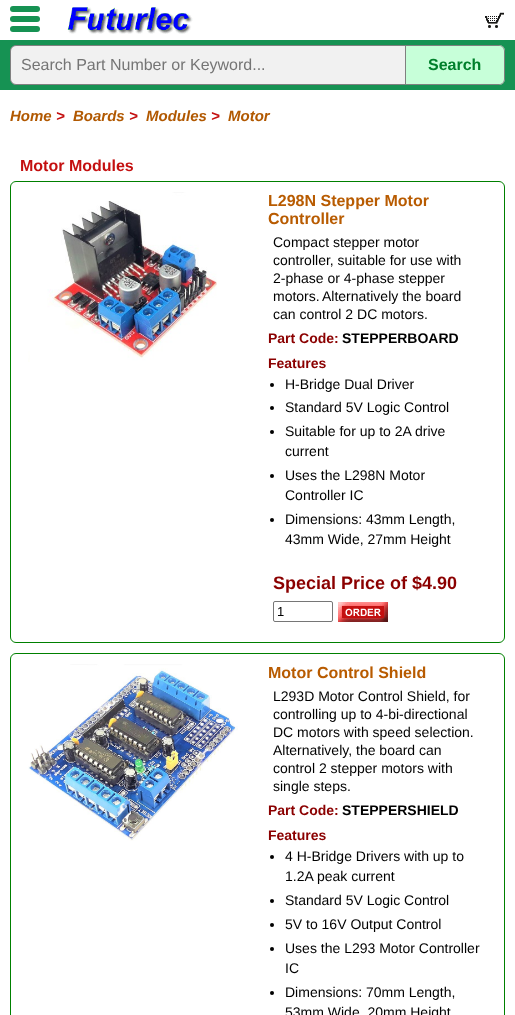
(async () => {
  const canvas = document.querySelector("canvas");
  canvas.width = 515;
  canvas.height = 1015;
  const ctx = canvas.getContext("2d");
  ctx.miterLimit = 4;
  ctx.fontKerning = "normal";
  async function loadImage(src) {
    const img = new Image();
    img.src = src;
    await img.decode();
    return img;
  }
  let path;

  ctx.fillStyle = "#ffffff";
  ctx.fillRect(0, 0, 515, 1015);
  ctx.fillStyle = "#169253";
  ctx.beginPath();
  ctx.roundRect(10, 6, 30, 6, 3);
  ctx.fill();
  ctx.beginPath();
  ctx.roundRect(10, 16, 30, 6, 3);
  ctx.fill();
  ctx.beginPath();
  ctx.roundRect(10, 26, 30, 6, 3);
  ctx.fill();
  ctx.drawImage(await loadImage("img/1.png"), 67, 7, 126, 27);
  ctx.drawImage(await loadImage("img/2.png"), 485, 12, 19, 16);
  ctx.fillRect(0, 40, 515, 50);
  ctx.fillStyle = "#f1f1f1";
  ctx.beginPath();
  ctx.roundRect(10.5, 45.5, 395, 39, [5.5, 0, 0, 5.5]);
  ctx.fill();
  ctx.strokeStyle = "#808080";
  ctx.stroke();
  ctx.fillStyle = "#c7ffd9";
  ctx.beginPath();
  ctx.roundRect(406, 45, 99, 40, [0, 6, 6, 0]);
  ctx.fill();
  ctx.fillStyle = "#808080";
  path = new Path2D("M406 45H499C502 45 505 48 505 51V79C505 82 502 85 499 85H406ZM406 46H499C502 46 504 48 504 51V79C504 82 502 84 499 84H406Z");
  ctx.fill(path, "evenodd");
  ctx.beginPath();
  ctx.roundRect(10.5, 181.5, 494, 461, 5.5);
  ctx.strokeStyle = "#008000";
  ctx.stroke();
  ctx.drawImage(await loadImage("img/3.png"), 28, 192, 189, 170);
  ctx.fillStyle = "#000000";
  ctx.beginPath();
  ctx.arc(272, 385, 2, 0, Math.PI * 2);
  ctx.fill();
  ctx.beginPath();
  ctx.arc(272, 408, 2, 0, Math.PI * 2);
  ctx.fill();
  ctx.beginPath();
  ctx.arc(272, 432, 2, 0, Math.PI * 2);
  ctx.fill();
  ctx.beginPath();
  ctx.arc(272, 476, 2, 0, Math.PI * 2);
  ctx.fill();
  ctx.beginPath();
  ctx.arc(272, 520, 2, 0, Math.PI * 2);
  ctx.fill();
  ctx.beginPath();
  ctx.roundRect(273.5, 601.5, 59, 20, 1.5);
  ctx.strokeStyle = "#767676";
  ctx.stroke();
  ctx.drawImage(await loadImage("img/4.png"), 338, 602, 50, 20);
  ctx.beginPath();
  ctx.roundRect(10.5, 653.5, 494, 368, 5.5);
  ctx.strokeStyle = "#008000";
  ctx.stroke();
  ctx.drawImage(await loadImage("img/5.png"), 28, 664, 210, 177);
  ctx.beginPath();
  ctx.arc(272, 857, 2, 0, Math.PI * 2);
  ctx.fill();
  ctx.beginPath();
  ctx.arc(272, 901, 2, 0, Math.PI * 2);
  ctx.fill();
  ctx.beginPath();
  ctx.arc(272, 925, 2, 0, Math.PI * 2);
  ctx.fill();
  ctx.beginPath();
  ctx.arc(272, 949, 2, 0, Math.PI * 2);
  ctx.fill();
  ctx.beginPath();
  ctx.arc(272, 993, 2, 0, Math.PI * 2);
  ctx.fill();
  ctx.font = "16px Liberation Sans";
  ctx.fillStyle = "#757575";
  ctx.fillText("Search Part Number or Keyword...", 21, 70);
  ctx.font = "bold 16px Liberation Sans";
  ctx.fillStyle = "#00802b";
  ctx.fillText("Search", 428, 70);
  ctx.font = "italic bold 15px Liberation Sans";
  ctx.fillStyle = "#b15800";
  ctx.fillText("Home", 10, 121);
  ctx.fillStyle = "#c41010";
  ctx.fillText(">", 56, 121);
  ctx.fillStyle = "#b15800";
  ctx.fillText("Boards", 73, 121);
  ctx.fillStyle = "#c41010";
  ctx.fillText(">", 129, 121);
  ctx.fillStyle = "#b15800";
  ctx.fillText("Modules", 146, 121);
  ctx.fillStyle = "#c41010";
  ctx.fillText(">", 211, 121);
  ctx.fillStyle = "#b15800";
  ctx.fillText("Motor", 228, 121);
  ctx.font = "bold 16px Liberation Sans";
  ctx.fillStyle = "#c41010";
  ctx.fillText("Motor Modules", 20, 171);
  ctx.fillStyle = "#b85b00";
  ctx.fillText("L298N Stepper Motor", 268, 206);
  ctx.fillText("Controller", 268, 224);
  ctx.font = "14px Liberation Sans";
  ctx.fillStyle = "#000000";
  for (const [text, x, y] of [
    ["Compact stepper motor", 273, 247],
    ["controller, suitable for use with", 273, 265],
    ["2-phase or 4-phase stepper", 273, 283],
    ["motors.", 273, 301],
    ["Alternatively the board", 322, 301],
    ["can control 2 DC motors.", 273, 319],
  ]) {
    ctx.fillText(text, x, y);
  }
  ctx.font = "bold 14px Liberation Sans";
  ctx.fillStyle = "#8b0000";
  ctx.fillText("Part Code:", 268, 343);
  ctx.fillStyle = "#000000";
  ctx.fillText("STEPPERBOARD", 342, 343);
  ctx.fillStyle = "#8b0000";
  ctx.fillText("Features", 268, 368);
  ctx.font = "14px Liberation Sans";
  ctx.fillStyle = "#000000";
  for (const [text, x, y] of [
    ["H-Bridge Dual Driver", 285, 389],
    ["Standard 5V Logic Control", 285, 412],
    ["Suitable for up to 2A drive", 285, 436],
    ["current", 285, 456],
    ["Uses the L298N Motor", 285, 480],
    ["Controller IC", 285, 500],
    ["Dimensions: 43mm Length,", 285, 524],
    ["43mm Wide, 27mm Height", 285, 544],
  ]) {
    ctx.fillText(text, x, y);
  }
  ctx.font = "bold 18px Liberation Sans";
  ctx.fillStyle = "#8b0000";
  ctx.fillText("Special Price of $4.90", 273, 589);
  ctx.font = "13px Liberation Sans";
  ctx.fillStyle = "#000000";
  ctx.fillText("1", 277, 616);
  ctx.font = "bold 16px Liberation Sans";
  ctx.fillStyle = "#b85b00";
  ctx.fillText("Motor Control Shield", 268, 678);
  ctx.font = "14px Liberation Sans";
  ctx.fillStyle = "#000000";
  for (const [text, x, y] of [
    ["L293D Motor Control Shield, for", 273, 701],
    ["controlling up to 4-bi-directional", 273, 719],
    ["DC motors with speed selection.", 273, 737],
    ["Alternatively, the board can", 273, 755],
    ["control 2 stepper motors with", 273, 773],
    ["single steps.", 273, 791],
  ]) {
    ctx.fillText(text, x, y);
  }
  ctx.font = "bold 14px Liberation Sans";
  ctx.fillStyle = "#8b0000";
  ctx.fillText("Part Code:", 268, 815);
  ctx.fillStyle = "#000000";
  ctx.fillText("STEPPERSHIELD", 342, 815);
  ctx.fillStyle = "#8b0000";
  ctx.fillText("Features", 268, 840);
  ctx.font = "14px Liberation Sans";
  ctx.fillStyle = "#000000";
  for (const [text, x, y] of [
    ["4 H-Bridge Drivers with up to", 285, 861],
    ["1.2A peak current", 285, 881],
    ["Standard 5V Logic Control", 285, 905],
    ["5V to 16V Output Control", 285, 929],
    ["Uses the L293 Motor Controller", 285, 953],
    ["IC", 285, 973],
    ["Dimensions: 70mm Length,", 285, 997],
    ["53mm Wide, 20mm Height", 285, 1017],
  ]) {
    ctx.fillText(text, x, y);
  }
})();
